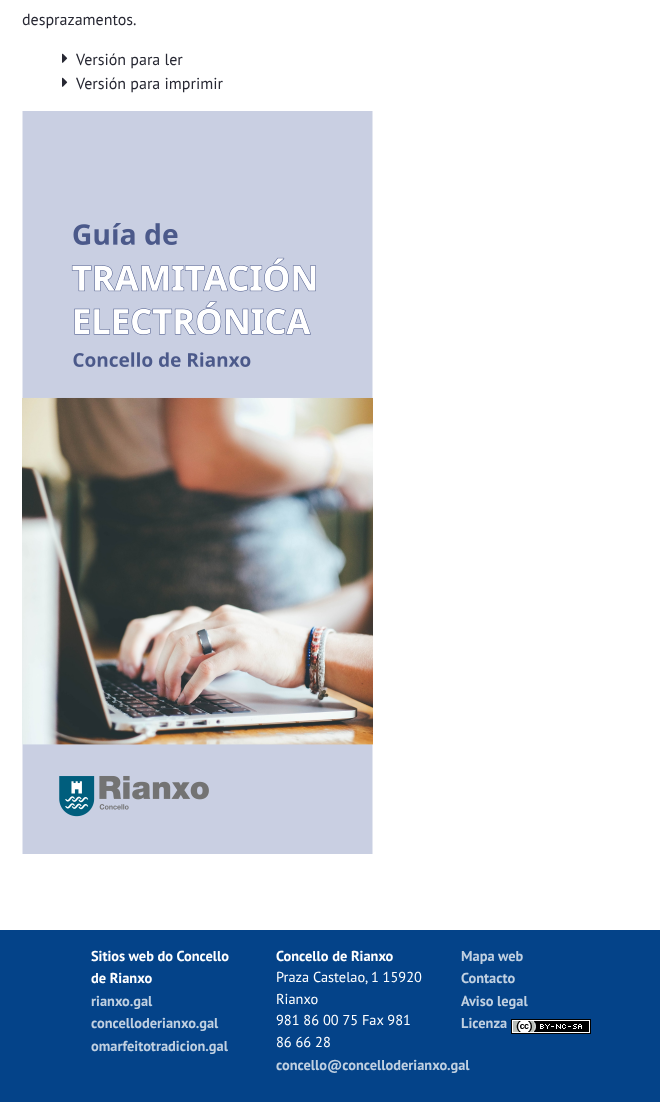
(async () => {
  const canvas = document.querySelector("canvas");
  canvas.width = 660;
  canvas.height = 1102;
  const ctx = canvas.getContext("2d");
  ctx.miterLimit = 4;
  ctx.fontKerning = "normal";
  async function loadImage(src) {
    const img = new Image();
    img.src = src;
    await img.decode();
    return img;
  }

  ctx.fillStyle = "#ffffff";
  ctx.fillRect(0, 0, 660, 1102);
  ctx.drawImage(await loadImage("img/1.png"), 62, 53, 6, 10);
  ctx.drawImage(await loadImage("img/1.png"), 62, 77, 6, 10);
  ctx.drawImage(await loadImage("img/2.png"), 22, 111, 351, 743);
  ctx.fillStyle = "#044389";
  ctx.fillRect(0, 930, 660, 172);
  ctx.drawImage(await loadImage("img/3.png"), 511, 1019, 80, 15);
  ctx.font = "16px PT Sans";
  ctx.fillStyle = "#272833";
  for (const [text, x, y] of [
    ["desprazamentos.", 22, 25],
    ["Versión para ler", 76, 65],
    ["Versión para imprimir", 76, 89],
  ]) {
    ctx.fillText(text, x, y);
  }
  ctx.font = "bold 14.4px PT Sans";
  ctx.fillStyle = "#ffffff";
  ctx.fillText("Sitios web do Concello", 91, 961);
  ctx.fillText("de Rianxo", 91, 983);
  ctx.fillStyle = "#c0d0e1";
  for (const [text, x, y] of [
    ["rianxo.gal", 91, 1006],
    ["concelloderianxo.gal", 91, 1028],
    ["omarfeitotradicion.gal", 91, 1051],
  ]) {
    ctx.fillText(text, x, y);
  }
  ctx.fillStyle = "#ffffff";
  ctx.fillText("Concello de Rianxo", 276, 961);
  ctx.font = "14.4px PT Sans";
  for (const [text, x, y] of [
    ["Praza Castelao, 1 15920", 276, 982],
    ["Rianxo", 276, 1004],
    ["981 86 00 75 Fax 981", 276, 1025],
    ["86 66 28", 276, 1047],
  ]) {
    ctx.fillText(text, x, y);
  }
  ctx.font = "bold 14.4px PT Sans";
  ctx.fillStyle = "#c0d0e1";
  for (const [text, x, y] of [
    ["concello@concelloderianxo.gal", 276, 1070],
    ["Mapa web", 461, 961],
    ["Contacto", 461, 983],
    ["Aviso legal", 461, 1006],
    ["Licenza", 461, 1028],
  ]) {
    ctx.fillText(text, x, y);
  }
})();
